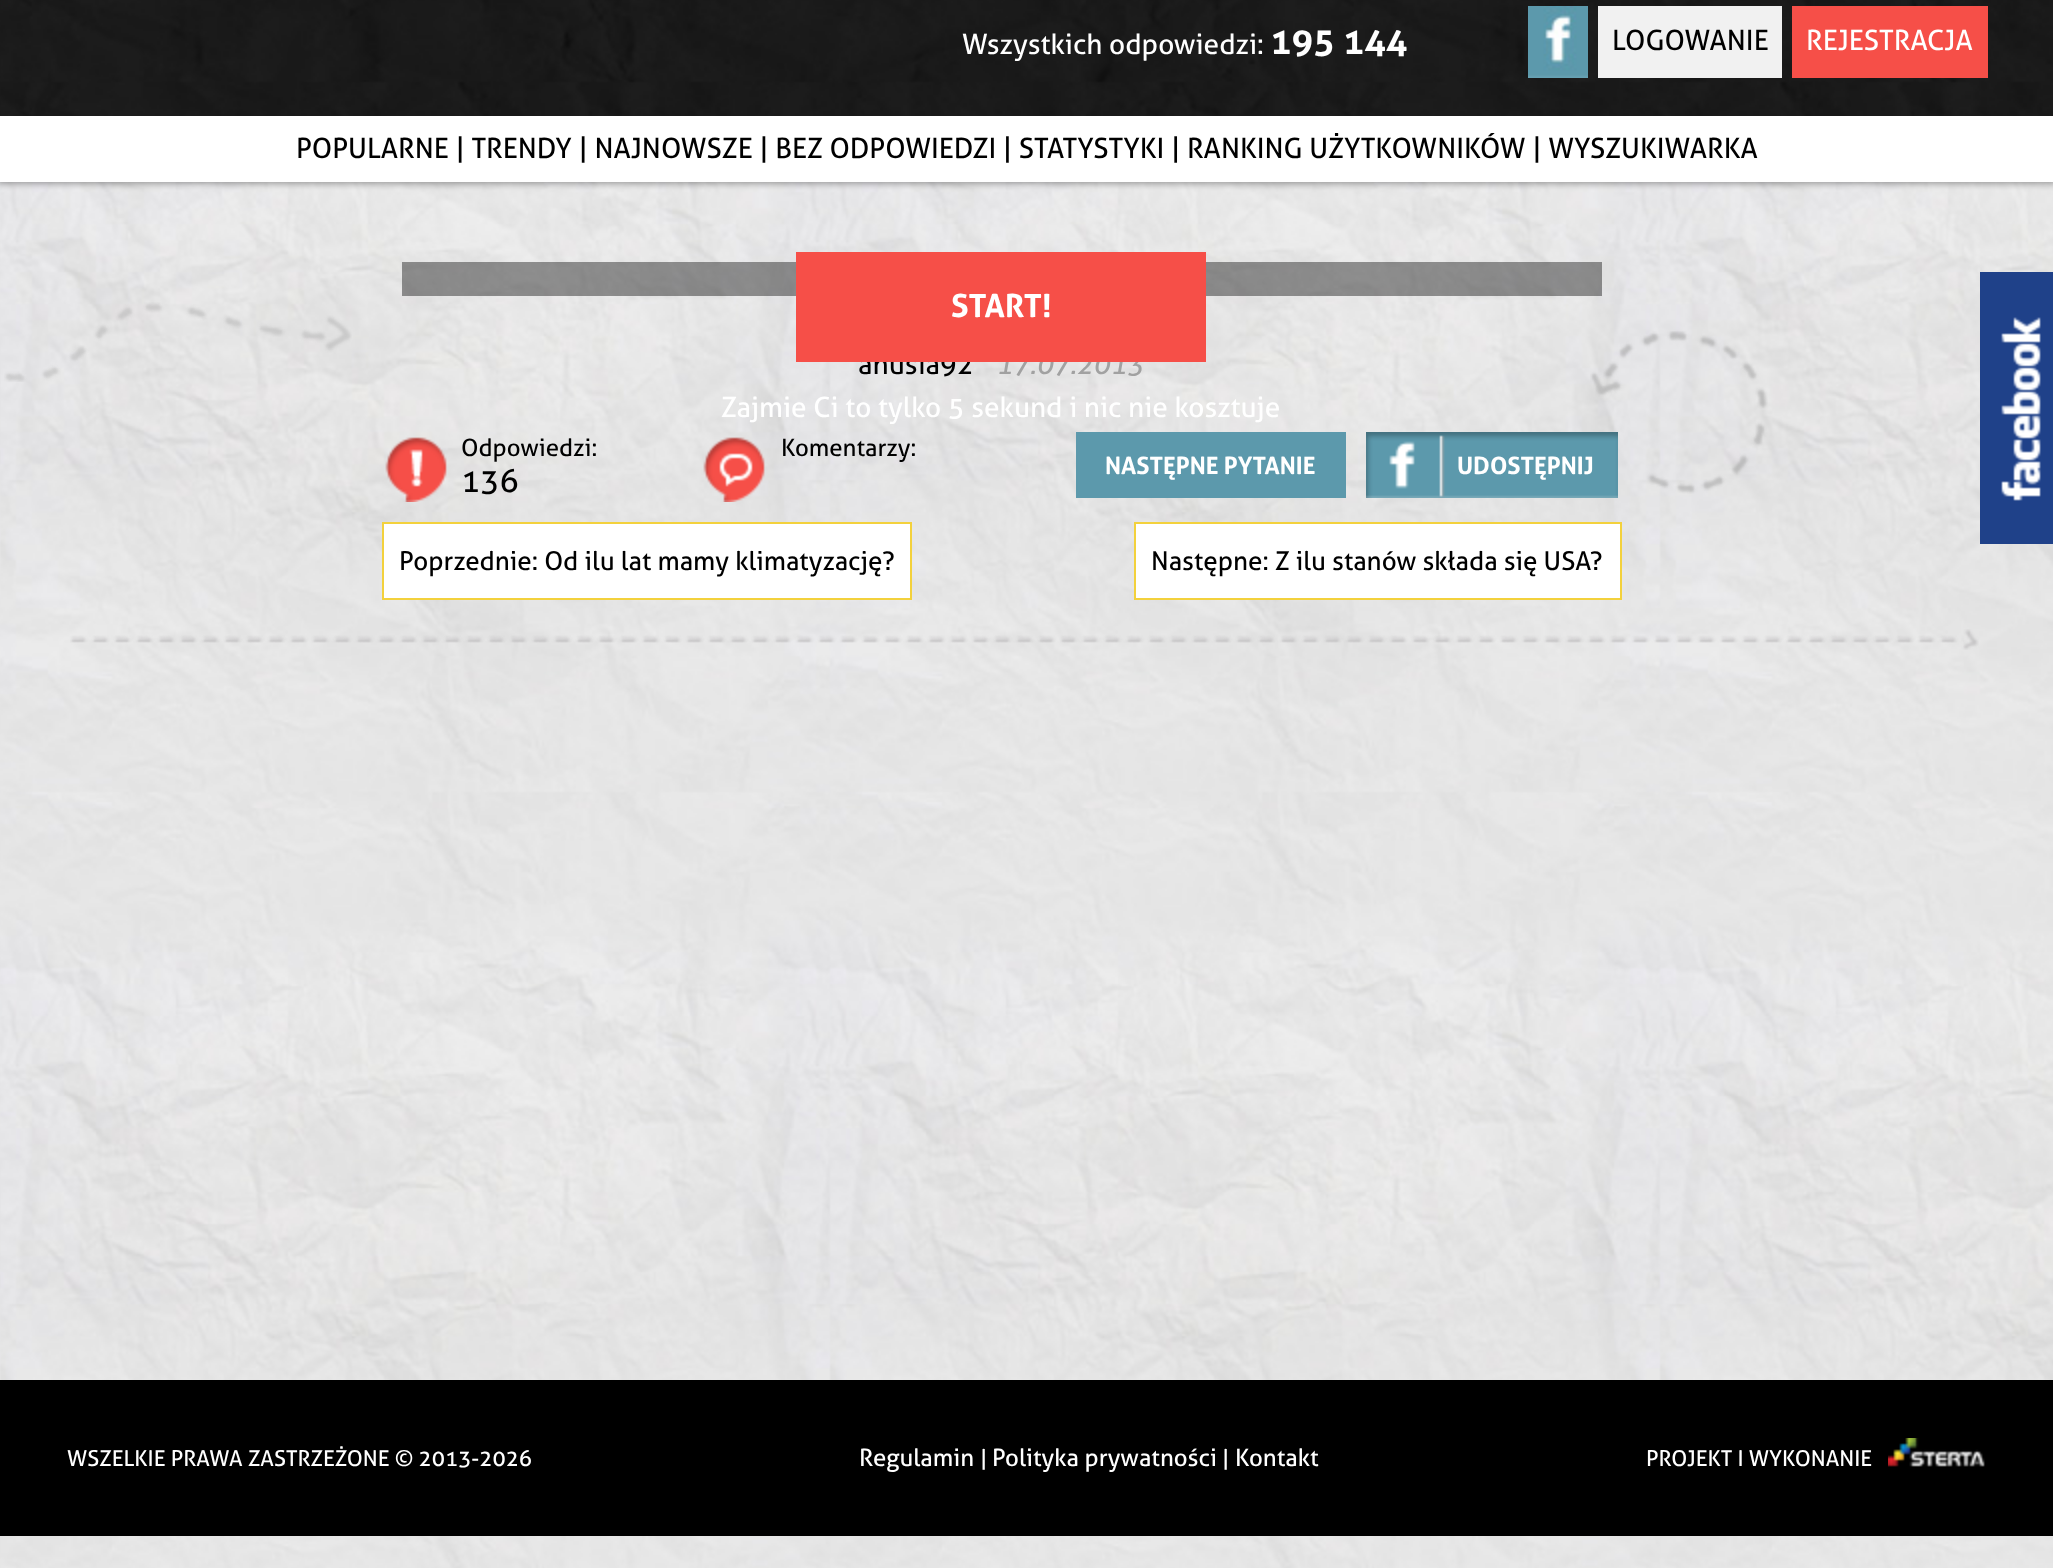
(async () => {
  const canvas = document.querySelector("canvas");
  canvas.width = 2053;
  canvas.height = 1568;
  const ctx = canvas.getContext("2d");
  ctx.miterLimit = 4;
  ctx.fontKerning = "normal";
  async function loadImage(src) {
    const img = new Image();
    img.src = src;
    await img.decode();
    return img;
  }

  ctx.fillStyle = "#ffffff";
  ctx.fillRect(0, 0, 2053, 1568);
  ctx.drawImage(await loadImage("img/1.png"), 0, 182, 2053, 1386);
  ctx.fillStyle = "rgba(0, 0, 0, 0.33)";
  ctx.filter = "blur(3px)";
  ctx.beginPath();
  ctx.rect(-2, -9, 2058, 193);
  ctx.fill();
  ctx.filter = "none";
  ctx.drawImage(await loadImage("img/2.png"), 0, 0, 2053, 116);
  ctx.drawImage(await loadImage("img/3.png"), 1528, 6, 60, 72);
  for (const [x, y, w, h, color] of [
    [1598, 6, 184, 72, "#f1f1f1"],
    [1792, 6, 196, 72, "#f64f48"],
    [0, 116, 2053, 66, "#ffffff"],
  ]) {
    ctx.fillStyle = color;
    ctx.fillRect(x, y, w, h);
  }
  ctx.drawImage(await loadImage("img/4.png"), 4, 302, 348, 80);
  ctx.fillStyle = "rgba(0, 0, 0, 0.4)";
  ctx.fillRect(402, 262, 1200, 34);
  ctx.drawImage(await loadImage("img/5.png"), 385, 437, 62, 65);
  ctx.drawImage(await loadImage("img/6.png"), 703, 437, 62, 65);
  ctx.fillStyle = "#5c99ac";
  ctx.fillRect(1076, 432, 270, 66);
  ctx.drawImage(await loadImage("img/7.png"), 1590, 331, 178, 163);
  ctx.drawImage(await loadImage("img/8.png"), 1366, 432, 252, 66);
  ctx.fillStyle = "#ffffff";
  ctx.beginPath();
  ctx.rect(383, 523, 528, 76);
  ctx.fill();
  ctx.strokeStyle = "#f3d13c";
  ctx.lineWidth = 2;
  ctx.stroke();
  ctx.beginPath();
  ctx.rect(1135, 523, 486, 76);
  ctx.fill();
  ctx.stroke();
  ctx.drawImage(await loadImage("img/9.png"), 70, 629, 1909, 21);
  ctx.drawImage(await loadImage("img/10.png"), 1980, 272, 73, 272);
  ctx.fillStyle = "#000000";
  ctx.fillRect(0, 1380, 2053, 156);
  ctx.drawImage(await loadImage("img/11.png"), 1888, 1438, 97, 29);
  ctx.font = "28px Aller";
  ctx.fillStyle = "#ffffff";
  ctx.fillText("Wszystkich odpowiedzi:", 962, 54);
  ctx.font = "bold 36px Aller";
  ctx.fillText("195 144", 1270, 54);
  ctx.font = "28px Aller";
  ctx.fillStyle = "#000000";
  ctx.fillText("LOGOWANIE", 1612, 50);
  ctx.fillStyle = "#ffffff";
  ctx.fillText("REJESTRACJA", 1806, 50);
  ctx.fillStyle = "#000000";
  ctx.fillText("POPULARNE | TRENDY | NAJNOWSZE | BEZ ODPOWIEDZI | STATYSTYKI | RANKING UŻYTKOWNIKÓW | WYSZUKIWARKA", 296, 158);
  ctx.fillStyle = "#ffffff";
  ctx.fillText("Zajmie Ci to tylko 5 sekund i nic nie kosztuje", 721, 417);
  ctx.fillStyle = "#000000";
  ctx.fillText("anusia92", 858, 374);
  ctx.font = "italic 28px Aller";
  ctx.fillStyle = "#a1a1a1";
  ctx.fillText("17.07.2013", 996, 374);
  ctx.fillStyle = "#f64f48";
  ctx.fillRect(796, 252, 410, 110);
  ctx.font = "bold 32px Aller";
  ctx.fillStyle = "#ffffff";
  ctx.fillText("START!", 951, 317);
  ctx.font = "24px Aller";
  ctx.fillStyle = "#000000";
  ctx.fillText("Odpowiedzi:", 461, 456);
  ctx.font = "32px Aller";
  ctx.fillText("136", 461, 492);
  ctx.font = "24px Aller";
  ctx.fillText("Komentarzy:", 781, 456);
  ctx.font = "bold 24px Aller";
  ctx.fillStyle = "#ffffff";
  ctx.fillText("NASTĘPNE PYTANIE", 1105, 474);
  ctx.fillText("UDOSTĘPNIJ", 1457, 474);
  ctx.font = "26px Aller";
  ctx.fillStyle = "#000000";
  ctx.fillText("Poprzednie: Od ilu lat mamy klimatyzację?", 399, 570);
  ctx.fillText("Następne: Z ilu stanów składa się USA?", 1151, 570);
  ctx.font = "22px Aller";
  ctx.fillStyle = "#ffffff";
  ctx.fillText("WSZELKIE PRAWA ZASTRZEŻONE © 2013-2026", 67, 1466);
  ctx.font = "24px Aller";
  ctx.fillText("Regulamin", 859, 1466);
  ctx.font = "22px Aller";
  ctx.fillText("|", 980, 1466);
  ctx.font = "24px Aller";
  ctx.fillText("Polityka prywatności", 992, 1466);
  ctx.font = "22px Aller";
  ctx.fillText("|", 1222, 1466);
  ctx.font = "24px Aller";
  ctx.fillText("Kontakt", 1235, 1466);
  ctx.font = "22px Aller";
  ctx.fillText("PROJEKT I WYKONANIE", 1646, 1466);
})();
